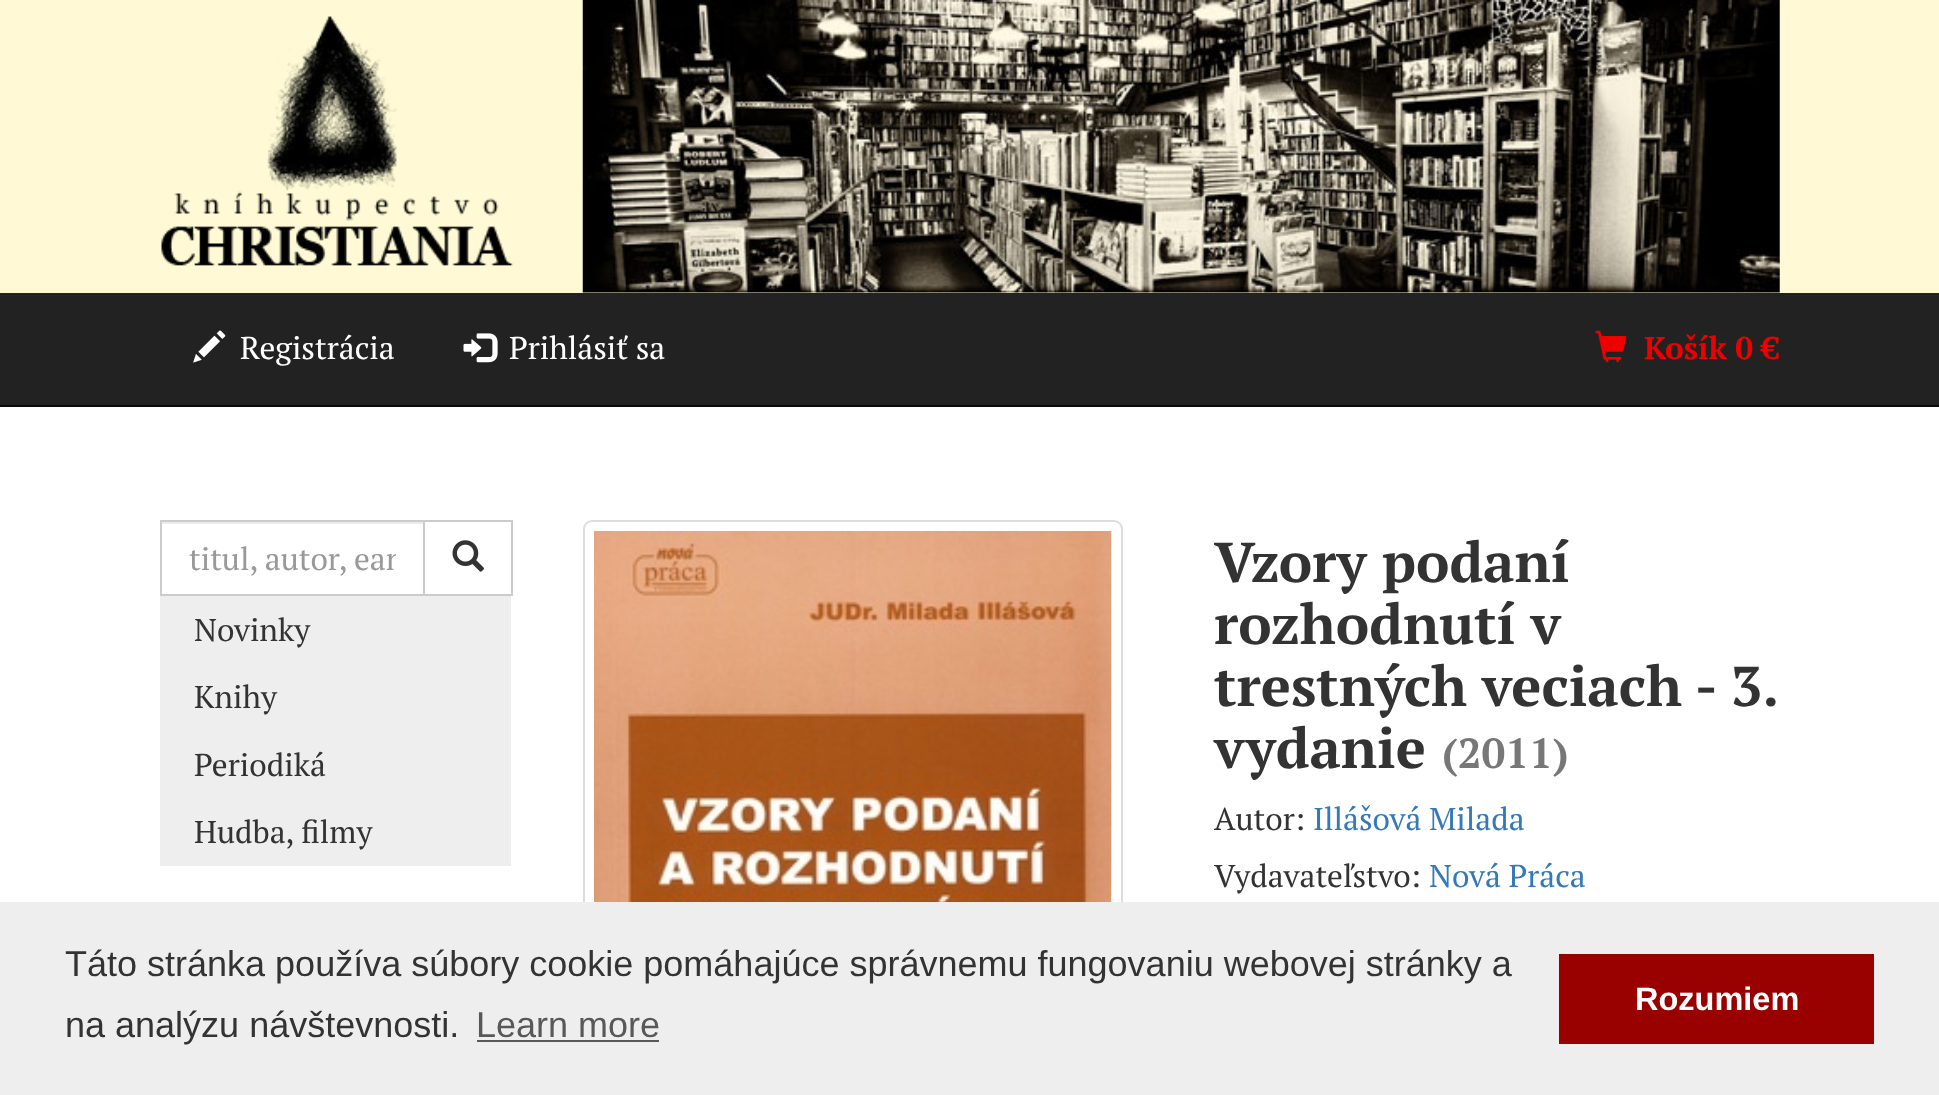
(async () => {
  const canvas = document.querySelector("canvas");
  canvas.width = 1939;
  canvas.height = 1095;
  const ctx = canvas.getContext("2d");
  ctx.miterLimit = 4;
  ctx.fontKerning = "normal";
  async function loadImage(src) {
    const img = new Image();
    img.src = src;
    await img.decode();
    return img;
  }

  ctx.fillStyle = "#ffffff";
  ctx.fillRect(0, 0, 1939, 1095);
  ctx.fillStyle = "#fffad5";
  ctx.fillRect(0, 0, 1939, 293);
  ctx.drawImage(await loadImage("img/1.png"), 161, 16, 352, 250);
  ctx.drawImage(await loadImage("img/2.png"), 582, 0, 1198, 293);
  ctx.fillStyle = "#222222";
  ctx.fillRect(0, 293, 1939, 112);
  ctx.fillStyle = "#090909";
  ctx.fillRect(0, 405, 1939, 2);
  ctx.drawImage(await loadImage("img/3.png"), 193, 330, 33, 33);
  ctx.drawImage(await loadImage("img/4.png"), 463, 333, 35, 30);
  ctx.drawImage(await loadImage("img/5.png"), 1595, 330, 32, 33);
  ctx.fillStyle = "#ececec";
  ctx.fillRect(162, 522, 261, 2);
  ctx.strokeStyle = "#cccccc";
  ctx.lineWidth = 2;
  ctx.strokeRect(161, 521, 263, 74);
  ctx.strokeRect(424, 521, 88, 74);
  ctx.drawImage(await loadImage("img/6.png"), 452, 540, 32, 32);
  ctx.fillStyle = "#eeeeee";
  ctx.fillRect(160, 596, 351, 270);
  ctx.beginPath();
  ctx.roundRect(584, 521, 538, 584, 8);
  ctx.strokeStyle = "#dddddd";
  ctx.stroke();
  ctx.drawImage(await loadImage("img/7.png"), 594, 531, 518, 371);
  for (const [x, y, w, h, color] of [
    [0, 902, 1939, 193, "#eeeeee"],
    [477, 1040, 182, 2, "#585858"],
    [1559, 954, 315, 90, "#990000"],
  ]) {
    ctx.fillStyle = color;
    ctx.fillRect(x, y, w, h);
  }
  ctx.font = "31.5px PT Serif";
  ctx.fillStyle = "#ffffff";
  ctx.fillText("Registrácia", 240, 359);
  ctx.fillText("Prihlásiť sa", 509, 359);
  ctx.font = "bold 31.5px PT Serif";
  ctx.fillStyle = "#ee0000";
  ctx.fillText("Košík 0 €", 1644, 359);
  ctx.save();
  ctx.beginPath();
  ctx.rect(189, 536, 207, 42);
  ctx.clip();
  ctx.font = "31.5px PT Serif";
  ctx.fillStyle = "#999999";
  ctx.fillText("titul, autor, ean", 189, 570);
  ctx.restore();
  ctx.font = "31.5px PT Serif";
  ctx.fillStyle = "#333333";
  for (const [text, x, y] of [
    ["Novinky", 194, 641],
    ["Knihy", 194, 708],
    ["Periodiká", 194, 776],
    ["Hudba, filmy", 194, 843],
  ]) {
    ctx.fillText(text, x, y);
  }
  ctx.font = "bold 56.25px PT Serif";
  ctx.fillText("Vzory podaní", 1214, 582);
  ctx.fillText("rozhodnutí v", 1214, 644);
  ctx.wordSpacing = "-0.5px";
  ctx.fillText("trestných veciach - 3.", 1214, 706);
  ctx.wordSpacing = "0px";
  ctx.fillText("vydanie", 1214, 768);
  ctx.font = "bold 42px PT Serif";
  ctx.fillStyle = "#777777";
  ctx.fillText("(2011)", 1442, 768);
  ctx.font = "31.5px PT Serif";
  ctx.fillStyle = "#333333";
  ctx.fillText("Autor:", 1214, 830);
  ctx.fillStyle = "#337ab7";
  ctx.fillText("Illášová Milada", 1313, 830);
  ctx.fillStyle = "#333333";
  ctx.fillText("Vydavateľstvo:", 1214, 887);
  ctx.fillStyle = "#337ab7";
  ctx.fillText("Nová Práca", 1429, 887);
  ctx.font = "36px Liberation Sans";
  ctx.fillStyle = "#333333";
  ctx.fillText("Táto stránka používa súbory cookie pomáhajúce správnemu fungovaniu webovej stránky a", 65, 976);
  ctx.fillText("na analýzu návštevnosti.", 65, 1037);
  ctx.fillStyle = "#585858";
  ctx.fillText("Learn more", 476, 1037);
  ctx.font = "bold 32.5px Liberation Sans";
  ctx.fillStyle = "#ffffff";
  ctx.fillText("Rozumiem", 1635, 1010);
})();
